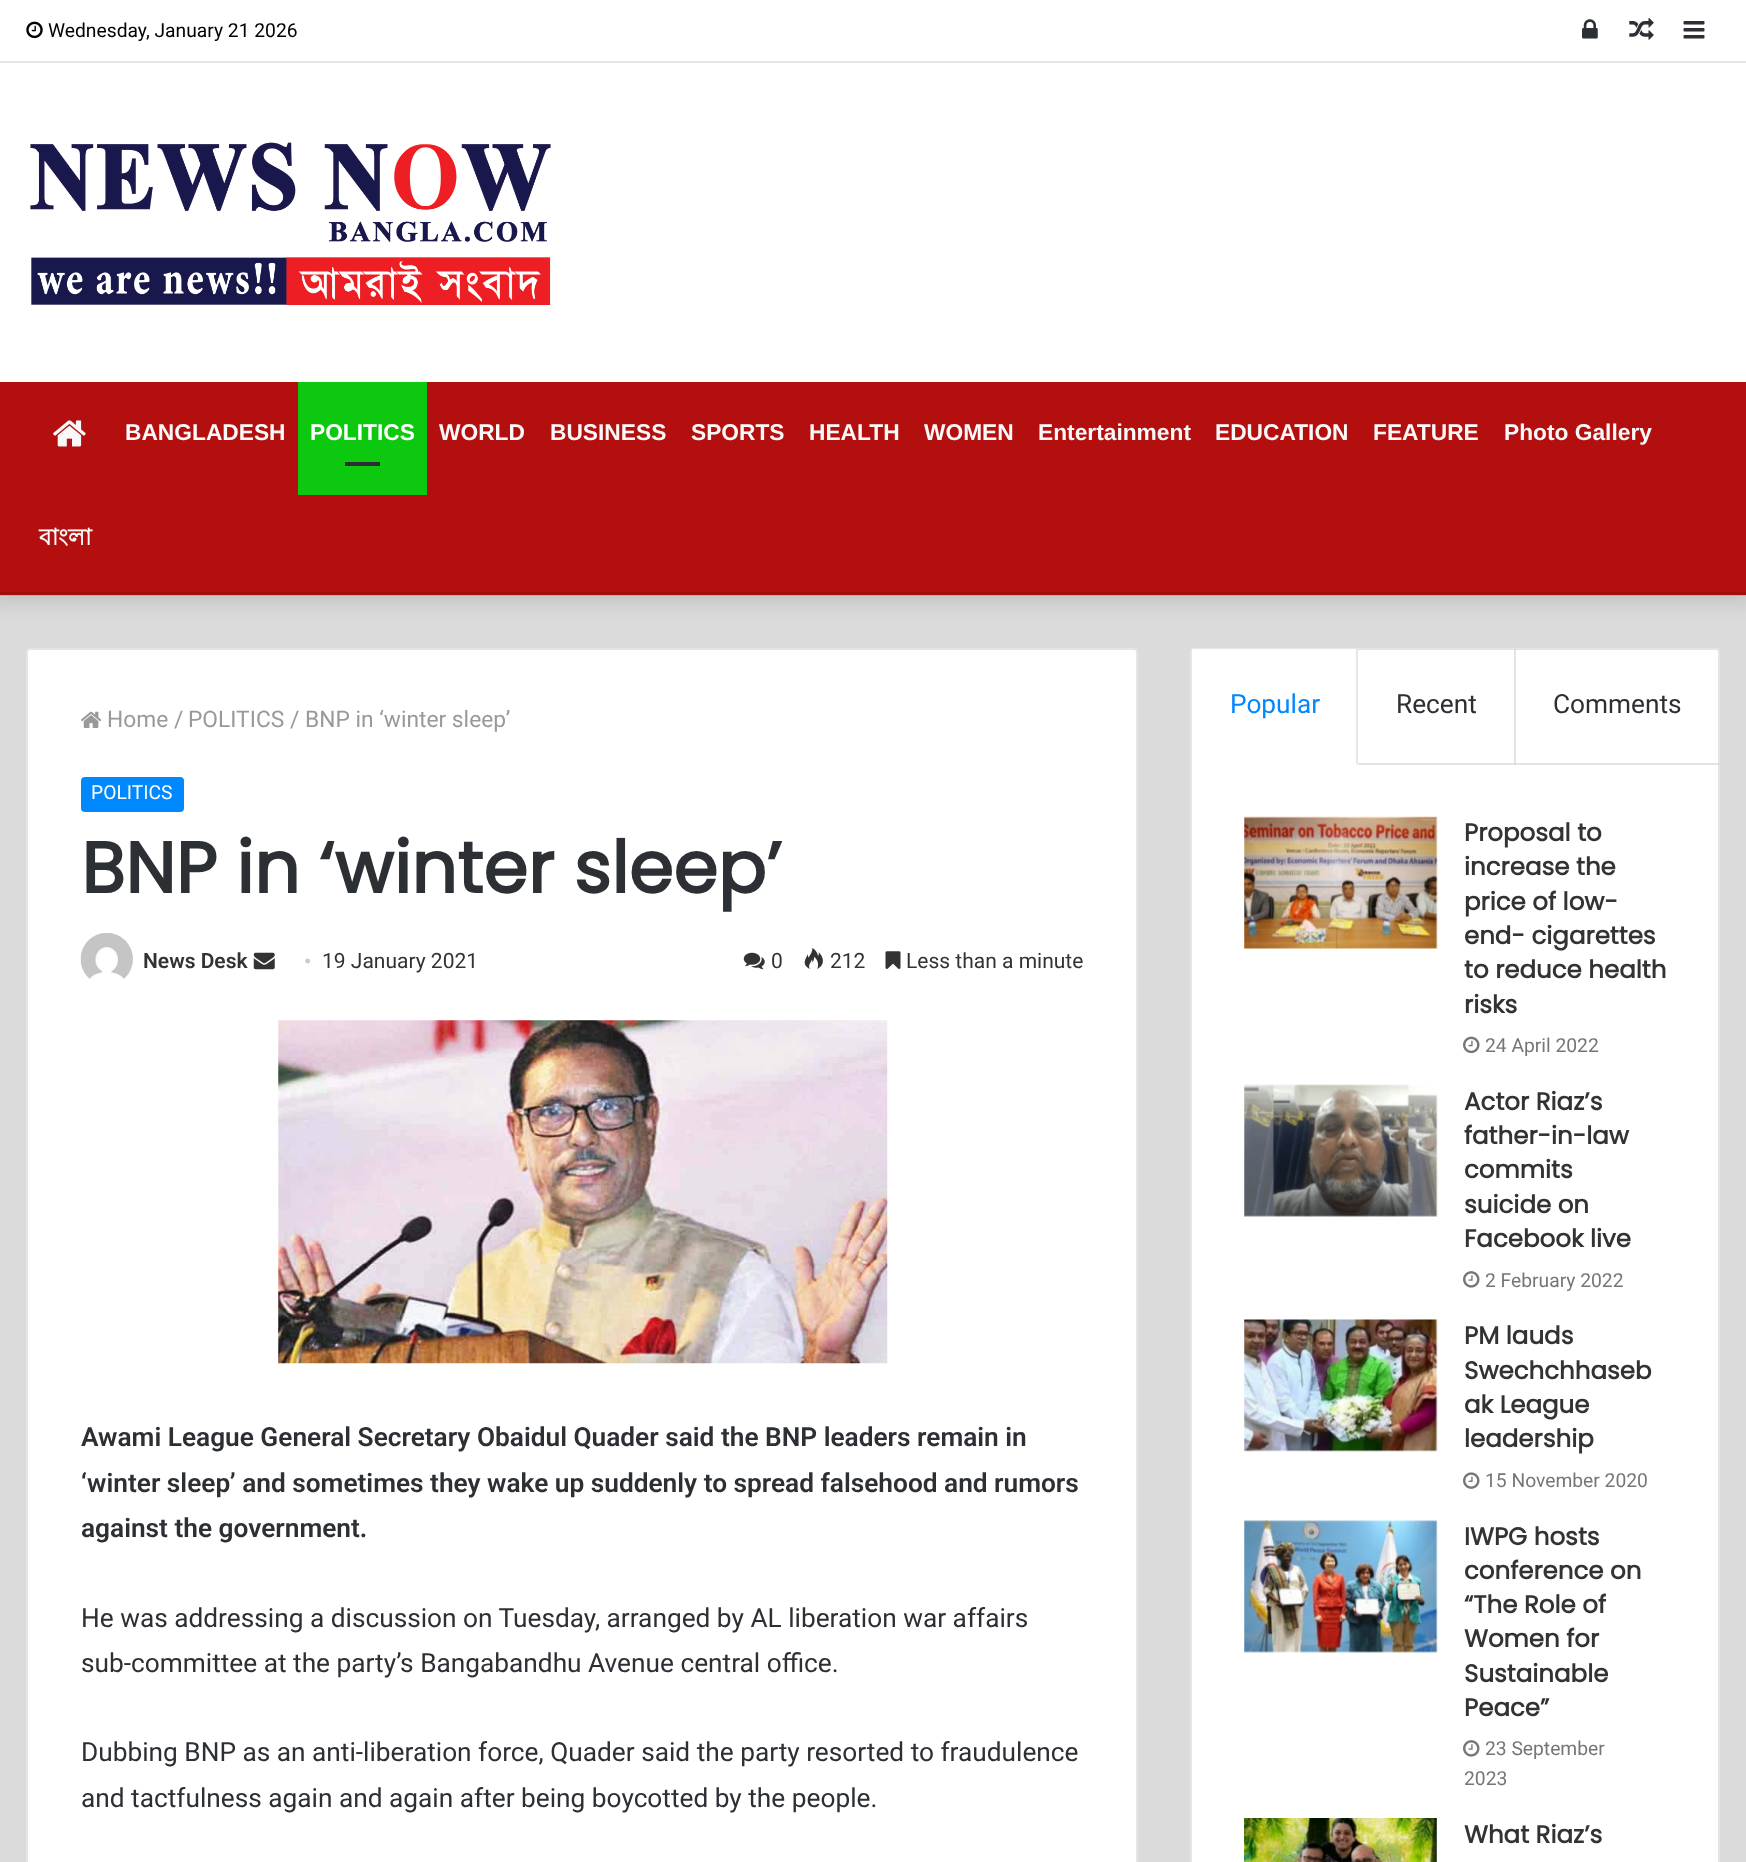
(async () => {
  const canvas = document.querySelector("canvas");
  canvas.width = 1746;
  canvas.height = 1862;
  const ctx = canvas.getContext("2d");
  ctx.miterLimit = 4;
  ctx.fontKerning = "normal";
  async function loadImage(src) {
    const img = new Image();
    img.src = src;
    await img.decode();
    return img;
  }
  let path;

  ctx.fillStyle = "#dbdbdb";
  ctx.fillRect(0, 0, 1746, 1862);
  ctx.fillStyle = "rgba(0, 0, 0, 0.1)";
  ctx.filter = "blur(9px)";
  ctx.beginPath();
  ctx.rect(-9, -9, 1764, 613);
  ctx.fill();
  ctx.filter = "none";
  ctx.fillStyle = "#ffffff";
  ctx.fillRect(0, 0, 1746, 382);
  ctx.fillStyle = "#e6e6e6";
  ctx.fillRect(0, 61, 1746, 2);
  ctx.drawImage(await loadImage("img/1.png"), 26, 21, 17, 18);
  ctx.drawImage(await loadImage("img/2.png"), 1582, 19, 16, 20);
  ctx.drawImage(await loadImage("img/3.png"), 1629, 18, 25, 22);
  ctx.drawImage(await loadImage("img/4.png"), 1683, 21, 22, 18);
  ctx.drawImage(await loadImage("img/5.png"), 30, 142, 521, 164);
  ctx.fillStyle = "#b30f0f";
  ctx.fillRect(0, 382, 1746, 213);
  ctx.fillStyle = "rgba(0, 0, 0, 0.1)";
  ctx.fillRect(0, 592, 1746, 4);
  ctx.drawImage(await loadImage("img/6.png"), 53, 420, 33, 27);
  ctx.fillStyle = "#0cc90f";
  ctx.fillRect(298, 382, 129, 113);
  ctx.fillStyle = "#2c2f34";
  ctx.fillRect(345, 462, 35, 4);
  ctx.fillStyle = "#ffffff";
  ctx.beginPath();
  ctx.roundRect(26, 648, 1112, 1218, 4);
  ctx.fill();
  ctx.beginPath();
  ctx.roundRect(27, 649, 1110, 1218, 3);
  ctx.strokeStyle = "rgba(0, 0, 0, 0.1)";
  ctx.lineWidth = 2;
  ctx.stroke();
  ctx.drawImage(await loadImage("img/7.png"), 81, 711, 21, 17);
  ctx.fillStyle = "#0088ff";
  ctx.beginPath();
  ctx.roundRect(81, 777, 103, 35, 4);
  ctx.fill();
  ctx.drawImage(await loadImage("img/8.png"), 80, 933, 53, 46);
  ctx.drawImage(await loadImage("img/9.png"), 253, 952, 22, 18);
  ctx.drawImage(await loadImage("img/10.png"), 743, 952, 22, 18);
  ctx.drawImage(await loadImage("img/11.png"), 804, 948, 19, 21);
  ctx.drawImage(await loadImage("img/12.png"), 885, 951, 16, 18);
  ctx.drawImage(await loadImage("img/13.png"), 278, 1020, 610, 344);
  ctx.fillStyle = "#ffffff";
  ctx.beginPath();
  ctx.roundRect(1190, 648, 530, 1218, 4);
  ctx.fill();
  ctx.beginPath();
  ctx.roundRect(1191, 649, 528, 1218, 3);
  ctx.stroke();
  ctx.fillStyle = "rgba(0, 0, 0, 0.1)";
  ctx.fillRect(1358, 763, 361, 2);
  ctx.fillStyle = "#ffffff";
  ctx.fillRect(1192, 649, 166, 3);
  ctx.fillStyle = "#e6e6e6";
  path = new Path2D("M1358 649V765L1356 763V649Z");
  ctx.fill(path);
  ctx.fillStyle = "rgba(0, 0, 0, 0.1)";
  path = new Path2D("M1516 649V765L1514 763V649Z");
  ctx.fill(path);
  ctx.drawImage(await loadImage("img/14.png"), 1244, 816, 194, 133);
  ctx.drawImage(await loadImage("img/15.png"), 1463, 1036, 17, 18);
  ctx.drawImage(await loadImage("img/16.png"), 1244, 1084, 194, 133);
  ctx.drawImage(await loadImage("img/17.png"), 1463, 1271, 17, 17);
  ctx.drawImage(await loadImage("img/18.png"), 1244, 1319, 194, 133);
  ctx.drawImage(await loadImage("img/19.png"), 1463, 1472, 17, 17);
  ctx.drawImage(await loadImage("img/20.png"), 1244, 1520, 194, 133);
  ctx.drawImage(await loadImage("img/17.png"), 1463, 1740, 17, 17);
  ctx.drawImage(await loadImage("img/21.png"), 1244, 1818, 193, 44);
  ctx.font = "19.25px Roboto";
  ctx.fillStyle = "#000000";
  ctx.fillText("Wednesday, January 21 2026", 48, 37);
  ctx.font = "bold 22.75px Liberation Sans";
  ctx.fillStyle = "#f9f9f9";
  ctx.fillText("BANGLADESH", 125, 440);
  ctx.fillStyle = "#ffffff";
  ctx.fillText("POLITICS", 310, 440);
  ctx.fillStyle = "#f9f9f9";
  for (const [text, x, y] of [
    ["WORLD", 439, 440],
    ["BUSINESS", 550, 440],
    ["SPORTS", 691, 440],
    ["HEALTH", 809, 440],
    ["WOMEN", 924, 440],
    ["Entertainment", 1038, 440],
    ["EDUCATION", 1215, 440],
    ["FEATURE", 1373, 440],
    ["Photo Gallery", 1504, 440],
  ]) {
    ctx.fillText(text, x, y);
  }
  ctx.font = "bold 22.75px Lohit Bengali";
  ctx.fillText("বাংলা", 39, 545);
  ctx.font = "22.75px Roboto";
  ctx.fillStyle = "#999999";
  for (const [text, x, y] of [
    ["Home", 107, 727],
    ["/", 174, 727],
    ["POLITICS", 188, 727],
    ["/", 290, 727],
    ["BNP in ‘winter sleep’", 305, 727],
  ]) {
    ctx.fillText(text, x, y);
  }
  ctx.font = "19.25px Roboto";
  ctx.fillStyle = "#ffffff";
  ctx.fillText("POLITICS", 91, 799);
  ctx.font = "bold 71.75px Poppins";
  ctx.fillStyle = "#2c2f34";
  ctx.fillText("BNP in ‘winter sleep’", 81, 893);
  ctx.font = "600 21px Roboto";
  ctx.fillStyle = "#333333";
  ctx.fillText("News Desk", 143, 968);
  ctx.font = "21px Liberation Serif";
  ctx.fillStyle = "#cccccc";
  ctx.fillText("•", 304, 968);
  ctx.font = "21px Roboto";
  ctx.fillStyle = "#333333";
  for (const [text, x, y] of [
    ["19 January 2021", 322, 968],
    ["0", 771, 968],
    ["212", 830, 968],
    ["Less than a minute", 906, 968],
  ]) {
    ctx.fillText(text, x, y);
  }
  ctx.font = "600 26.25px Roboto";
  ctx.fillStyle = "#2c2f34";
  for (const [text, x, y] of [
    ["Awami League General Secretary Obaidul Quader said the BNP leaders remain in", 81, 1446],
    ["‘winter sleep’ and sometimes they wake up suddenly to spread falsehood and rumors", 81, 1492],
    ["against the government.", 81, 1537],
  ]) {
    ctx.fillText(text, x, y);
  }
  ctx.font = "26.25px Roboto";
  for (const [text, x, y] of [
    ["He was addressing a discussion on Tuesday, arranged by AL liberation war affairs", 81, 1627],
    ["sub-committee at the party’s Bangabandhu Avenue central office.", 81, 1672],
    ["Dubbing BNP as an anti-liberation force, Quader said the party resorted to fraudulence", 81, 1761],
    ["and tactfulness again and again after being boycotted by the people.", 81, 1807],
  ]) {
    ctx.fillText(text, x, y);
  }
  ctx.fillStyle = "#0088ff";
  ctx.fillText("Popular", 1230, 713);
  ctx.fillStyle = "#2c2f34";
  ctx.fillText("Recent", 1396, 713);
  ctx.fillText("Comments", 1553, 713);
  ctx.font = "bold 24.5px Poppins";
  ctx.fillStyle = "#333333";
  for (const [text, x, y] of [
    ["Proposal to", 1464, 841],
    ["increase the", 1464, 875],
    ["price of low-", 1464, 910],
    ["end- cigarettes", 1464, 944],
    ["to reduce health", 1464, 978],
    ["risks", 1464, 1013],
  ]) {
    ctx.fillText(text, x, y);
  }
  ctx.font = "19.25px Roboto";
  ctx.fillStyle = "#767676";
  ctx.fillText("24 April 2022", 1485, 1052);
  ctx.font = "bold 24.5px Poppins";
  ctx.fillStyle = "#333333";
  for (const [text, x, y] of [
    ["Actor Riaz’s", 1464, 1110],
    ["father-in-law", 1464, 1144],
    ["commits", 1464, 1178],
    ["suicide on", 1464, 1213],
    ["Facebook live", 1464, 1247],
  ]) {
    ctx.fillText(text, x, y);
  }
  ctx.font = "19.25px Roboto";
  ctx.fillStyle = "#767676";
  ctx.fillText("2 February 2022", 1485, 1287);
  ctx.font = "bold 24.5px Poppins";
  ctx.fillStyle = "#333333";
  for (const [text, x, y] of [
    ["PM lauds", 1464, 1344],
    ["Swechchhaseb", 1464, 1379],
    ["ak League", 1464, 1413],
    ["leadership", 1464, 1447],
  ]) {
    ctx.fillText(text, x, y);
  }
  ctx.font = "19.25px Roboto";
  ctx.fillStyle = "#767676";
  ctx.fillText("15 November 2020", 1485, 1487);
  ctx.font = "bold 24.5px Poppins";
  ctx.fillStyle = "#333333";
  for (const [text, x, y] of [
    ["IWPG hosts", 1464, 1545],
    ["conference on", 1464, 1579],
    ["“The Role of", 1464, 1613],
    ["Women for", 1464, 1647],
    ["Sustainable", 1464, 1682],
    ["Peace”", 1464, 1716],
  ]) {
    ctx.fillText(text, x, y);
  }
  ctx.font = "19.25px Roboto";
  ctx.fillStyle = "#767676";
  ctx.fillText("23 September", 1485, 1755);
  ctx.fillText("2023", 1464, 1785);
  ctx.font = "bold 24.5px Poppins";
  ctx.fillStyle = "#333333";
  ctx.fillText("What Riaz’s", 1464, 1843);
})();
